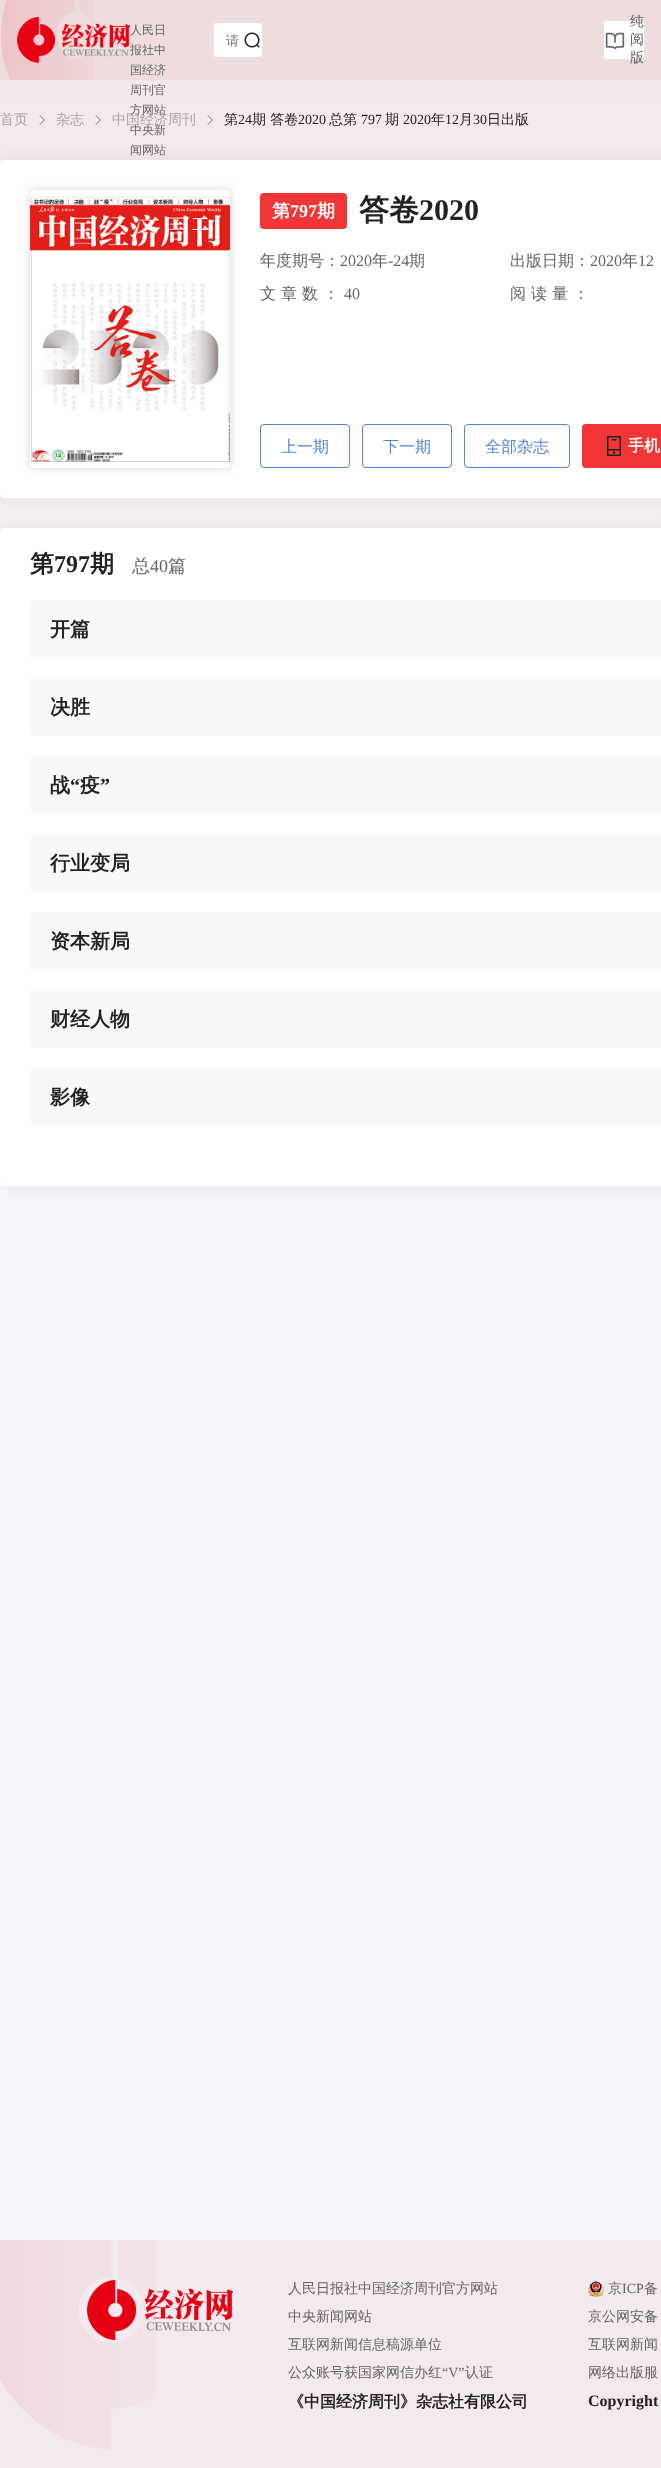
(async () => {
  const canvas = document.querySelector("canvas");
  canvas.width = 661;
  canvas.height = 2468;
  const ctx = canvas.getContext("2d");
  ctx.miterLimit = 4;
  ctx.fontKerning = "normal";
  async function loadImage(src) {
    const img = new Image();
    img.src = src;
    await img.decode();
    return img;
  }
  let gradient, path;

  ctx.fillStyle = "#ffffff";
  ctx.fillRect(0, 0, 661, 2468);
  gradient = ctx.createLinearGradient(330, 0, 331, 2468);
  gradient.addColorStop(0, "#f4e8e9");
  gradient.addColorStop(0.4, "#f8f7fc");
  ctx.fillStyle = gradient;
  ctx.fillRect(0, 80, 661, 2160);
  ctx.fillStyle = "#efdcdd";
  ctx.fillRect(0, 0, 661, 80);
  ctx.drawImage(await loadImage("img/1.png"), 1, 0, 93, 80);
  ctx.drawImage(await loadImage("img/2.png"), 17, 17, 113, 46);
  ctx.fillStyle = "#ffffff";
  ctx.beginPath();
  ctx.roundRect(213, 22, 50, 36, 4);
  ctx.fill();
  ctx.beginPath();
  ctx.roundRect(213.5, 22.5, 49, 35, 3.5);
  ctx.strokeStyle = "rgba(167, 167, 167, 0.32)";
  ctx.stroke();
  ctx.drawImage(await loadImage("img/3.png"), 244, 32, 16, 16);
  ctx.beginPath();
  ctx.roundRect(603, 20, 42, 40, 4);
  ctx.fill();
  ctx.beginPath();
  ctx.roundRect(603.5, 20.5, 41, 39, 3.5);
  ctx.stroke();
  ctx.drawImage(await loadImage("img/4.png"), 605, 32, 20, 18);
  ctx.drawImage(await loadImage("img/5.png"), 39, 115, 6, 10);
  ctx.drawImage(await loadImage("img/5.png"), 95, 115, 6, 10);
  ctx.drawImage(await loadImage("img/6.png"), 207, 115, 6, 10);
  ctx.fillStyle = "rgba(167, 167, 167, 0.24)";
  ctx.filter = "blur(10px)";
  ctx.beginPath();
  ctx.roundRect(0, 160, 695, 338, 4);
  ctx.fill();
  ctx.filter = "none";
  ctx.fillStyle = "#ffffff";
  ctx.beginPath();
  ctx.roundRect(0, 160, 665, 338, 4);
  ctx.fill();
  ctx.save();
  path = new Path2D("M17 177H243V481H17ZM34 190H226C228 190 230 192 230 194V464C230 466 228 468 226 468H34C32 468 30 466 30 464V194C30 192 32 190 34 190Z");
  ctx.clip(path, "evenodd");
  ctx.fillStyle = "rgba(0, 0, 0, 0.16)";
  ctx.filter = "blur(4px)";
  ctx.beginPath();
  ctx.roundRect(30, 190, 200, 278, 4);
  ctx.fill();
  ctx.filter = "none";
  ctx.restore();
  ctx.drawImage(await loadImage("img/7.png"), 30, 196, 200, 266);
  ctx.fillStyle = "#f23637";
  ctx.beginPath();
  ctx.roundRect(260, 193, 87, 36, 4);
  ctx.fill();
  ctx.beginPath();
  ctx.roundRect(260.5, 424.5, 89, 43, 3.5);
  ctx.strokeStyle = "#5184df";
  ctx.stroke();
  ctx.beginPath();
  ctx.roundRect(362.5, 424.5, 89, 43, 3.5);
  ctx.stroke();
  ctx.beginPath();
  ctx.roundRect(464.5, 424.5, 105, 43, 3.5);
  ctx.stroke();
  ctx.beginPath();
  ctx.roundRect(582, 424, 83, 44, 4);
  ctx.fill();
  ctx.drawImage(await loadImage("img/8.png"), 607, 436, 14, 20);
  ctx.fillStyle = "rgba(167, 167, 167, 0.24)";
  ctx.filter = "blur(10px)";
  ctx.beginPath();
  ctx.roundRect(0, 528, 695, 658, 4);
  ctx.fill();
  ctx.filter = "none";
  ctx.fillStyle = "#ffffff";
  ctx.beginPath();
  ctx.roundRect(0, 528, 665, 658, 4);
  ctx.fill();
  ctx.fillStyle = "#f8f8f8";
  ctx.beginPath();
  ctx.roundRect(30, 600, 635, 58, 4);
  ctx.fill();
  ctx.beginPath();
  ctx.roundRect(30, 678, 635, 58, 4);
  ctx.fill();
  ctx.beginPath();
  ctx.roundRect(30, 756, 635, 58, 4);
  ctx.fill();
  ctx.beginPath();
  ctx.roundRect(30, 834, 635, 58, 4);
  ctx.fill();
  ctx.beginPath();
  ctx.roundRect(30, 912, 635, 58, 4);
  ctx.fill();
  ctx.beginPath();
  ctx.roundRect(30, 990, 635, 58, 4);
  ctx.fill();
  ctx.beginPath();
  ctx.roundRect(30, 1068, 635, 58, 4);
  ctx.fill();
  ctx.fillStyle = "#f2eaee";
  ctx.fillRect(0, 2240, 661, 228);
  ctx.drawImage(await loadImage("img/9.png"), 0, 2240, 156, 209);
  ctx.drawImage(await loadImage("img/10.png"), 87, 2280, 146, 60);
  ctx.drawImage(await loadImage("img/11.png"), 588, 2281, 16, 16);
  ctx.font = "500 12px WenQuanYi Zen Hei";
  ctx.fillStyle = "#646464";
  for (const [text, x, y] of [
    ["人民日", 130, 34],
    ["报社中", 130, 54],
    ["国经济", 130, 74],
    ["周刊官", 130, 94],
    ["方网站", 130, 114],
    ["中央新", 130, 134],
    ["闻网站", 130, 154],
  ]) {
    ctx.fillText(text, x, y);
  }
  ctx.font = "500 13px WenQuanYi Zen Hei";
  ctx.fillStyle = "#757575";
  ctx.fillText("请", 226, 45);
  ctx.font = "500 14px WenQuanYi Zen Hei";
  ctx.fillStyle = "#646464";
  for (const [text, x, y] of [
    ["纯", 630, 26],
    ["阅", 630, 44],
    ["版", 630, 62],
  ]) {
    ctx.fillText(text, x, y);
  }
  ctx.fillStyle = "#a7a7a7";
  for (const [text, x, y] of [
    ["首页", 0, 124],
    ["杂志", 56, 124],
    ["中国经济周刊", 112, 124],
  ]) {
    ctx.fillText(text, x, y);
  }
  ctx.fillStyle = "#222222";
  ctx.fillText("第", 224, 124);
  ctx.font = "14px Liberation Serif";
  ctx.fillText("24", 238, 124);
  ctx.font = "500 14px WenQuanYi Zen Hei";
  ctx.fillText("期 答卷", 252, 124);
  ctx.font = "14px Liberation Serif";
  ctx.fillText("2020", 298, 124);
  ctx.font = "500 14px WenQuanYi Zen Hei";
  ctx.fillText("总第", 329, 124);
  ctx.font = "14px Liberation Serif";
  ctx.fillText("797", 361, 124);
  ctx.font = "500 14px WenQuanYi Zen Hei";
  ctx.fillText("期", 385, 124);
  ctx.font = "14px Liberation Serif";
  ctx.fillText("2020", 403, 124);
  ctx.font = "500 14px WenQuanYi Zen Hei";
  ctx.fillText("年", 431, 124);
  ctx.font = "14px Liberation Serif";
  ctx.fillText("12", 445, 124);
  ctx.font = "500 14px WenQuanYi Zen Hei";
  ctx.fillText("月", 459, 124);
  ctx.font = "14px Liberation Serif";
  ctx.fillText("30", 473, 124);
  ctx.font = "500 14px WenQuanYi Zen Hei";
  ctx.fillText("日出版", 487, 124);
  ctx.font = "bold 18px WenQuanYi Zen Hei";
  ctx.fillStyle = "#ffffff";
  ctx.fillText("第", 272, 217);
  ctx.font = "bold 18px Liberation Serif";
  ctx.fillText("797", 290, 217);
  ctx.font = "bold 18px WenQuanYi Zen Hei";
  ctx.fillText("期", 317, 217);
  ctx.font = "bold 30px WenQuanYi Zen Hei";
  ctx.fillStyle = "#222222";
  ctx.fillText("答卷", 359, 220);
  ctx.font = "bold 30px Liberation Serif";
  ctx.fillText("2020", 419, 220);
  ctx.font = "500 16px WenQuanYi Zen Hei";
  ctx.fillStyle = "#646464";
  ctx.fillText("年度期号：", 260, 266);
  ctx.font = "16px Liberation Serif";
  ctx.fillText("2020", 340, 266);
  ctx.font = "500 16px WenQuanYi Zen Hei";
  ctx.fillText("年", 372, 266);
  ctx.font = "16px Liberation Serif";
  ctx.fillText("-24", 388, 266);
  ctx.font = "500 16px WenQuanYi Zen Hei";
  ctx.fillText("期", 409, 266);
  ctx.fillText("出版日期：", 510, 266);
  ctx.font = "16px Liberation Serif";
  ctx.fillText("2020", 590, 266);
  ctx.font = "500 16px WenQuanYi Zen Hei";
  ctx.fillText("年", 622, 266);
  ctx.font = "16px Liberation Serif";
  ctx.fillText("12", 638, 266);
  ctx.letterSpacing = "5px";
  ctx.font = "500 16px WenQuanYi Zen Hei";
  ctx.fillText("文章数：", 260, 299);
  ctx.letterSpacing = "0px";
  ctx.font = "16px Liberation Serif";
  ctx.fillText("40", 344, 299);
  ctx.letterSpacing = "5px";
  ctx.font = "500 16px WenQuanYi Zen Hei";
  ctx.fillText("阅读量：", 510, 299);
  ctx.letterSpacing = "0px";
  ctx.fillStyle = "#5184df";
  for (const [text, x, y] of [
    ["上一期", 281, 452],
    ["下一期", 383, 452],
    ["全部杂志", 485, 452],
  ]) {
    ctx.fillText(text, x, y);
  }
  ctx.font = "bold 16px WenQuanYi Zen Hei";
  ctx.fillStyle = "#ffffff";
  ctx.fillText("手机", 628, 451);
  ctx.font = "bold 24px WenQuanYi Zen Hei";
  ctx.fillStyle = "#222222";
  ctx.fillText("第", 30, 572);
  ctx.font = "bold 24px Liberation Serif";
  ctx.fillText("797", 54, 572);
  ctx.font = "bold 24px WenQuanYi Zen Hei";
  ctx.fillText("期", 90, 572);
  ctx.font = "500 18px WenQuanYi Zen Hei";
  ctx.fillStyle = "#646464";
  ctx.fillText("总", 132, 572);
  ctx.font = "18px Liberation Serif";
  ctx.fillText("40", 150, 572);
  ctx.font = "500 18px WenQuanYi Zen Hei";
  ctx.fillText("篇", 168, 572);
  ctx.font = "bold 20px WenQuanYi Zen Hei";
  ctx.fillStyle = "#222222";
  for (const [text, x, y] of [
    ["开篇", 50, 636],
    ["决胜", 50, 714],
    ["战", 50, 792],
  ]) {
    ctx.fillText(text, x, y);
  }
  ctx.font = "bold 20px Liberation Serif";
  ctx.fillText("“", 70, 792);
  ctx.font = "bold 20px WenQuanYi Zen Hei";
  ctx.fillText("疫", 80, 792);
  ctx.font = "bold 20px Liberation Serif";
  ctx.fillText("”", 100, 792);
  ctx.font = "bold 20px WenQuanYi Zen Hei";
  for (const [text, x, y] of [
    ["行业变局", 50, 870],
    ["资本新局", 50, 948],
    ["财经人物", 50, 1026],
    ["影像", 50, 1104],
  ]) {
    ctx.fillText(text, x, y);
  }
  ctx.font = "500 14px WenQuanYi Zen Hei";
  ctx.fillStyle = "#646464";
  for (const [text, x, y] of [
    ["人民日报社中国经济周刊官方网站", 288, 2293],
    ["中央新闻网站", 288, 2321],
    ["互联网新闻信息稿源单位", 288, 2349],
    ["公众账号获国家网信办红", 288, 2377],
  ]) {
    ctx.fillText(text, x, y);
  }
  ctx.font = "14px Liberation Serif";
  ctx.fillText("“V”", 442, 2377);
  ctx.font = "500 14px WenQuanYi Zen Hei";
  ctx.fillText("认证", 465, 2377);
  ctx.font = "bold 16px WenQuanYi Zen Hei";
  ctx.fillStyle = "#222222";
  ctx.fillText("《中国经济周刊》杂志社有限公司", 288, 2407);
  ctx.font = "500 14px WenQuanYi Zen Hei";
  ctx.fillStyle = "#646464";
  ctx.fillText("京", 608, 2293);
  ctx.font = "14px Liberation Serif";
  ctx.fillText("ICP", 622, 2293);
  ctx.font = "500 14px WenQuanYi Zen Hei";
  for (const [text, x, y] of [
    ["备", 644, 2293],
    ["京公网安备", 588, 2321],
    ["互联网新闻", 588, 2349],
    ["网络出版服", 588, 2377],
  ]) {
    ctx.fillText(text, x, y);
  }
  ctx.font = "bold 16px Liberation Serif";
  ctx.fillStyle = "#222222";
  ctx.fillText("Copyright", 588, 2406);
})();
